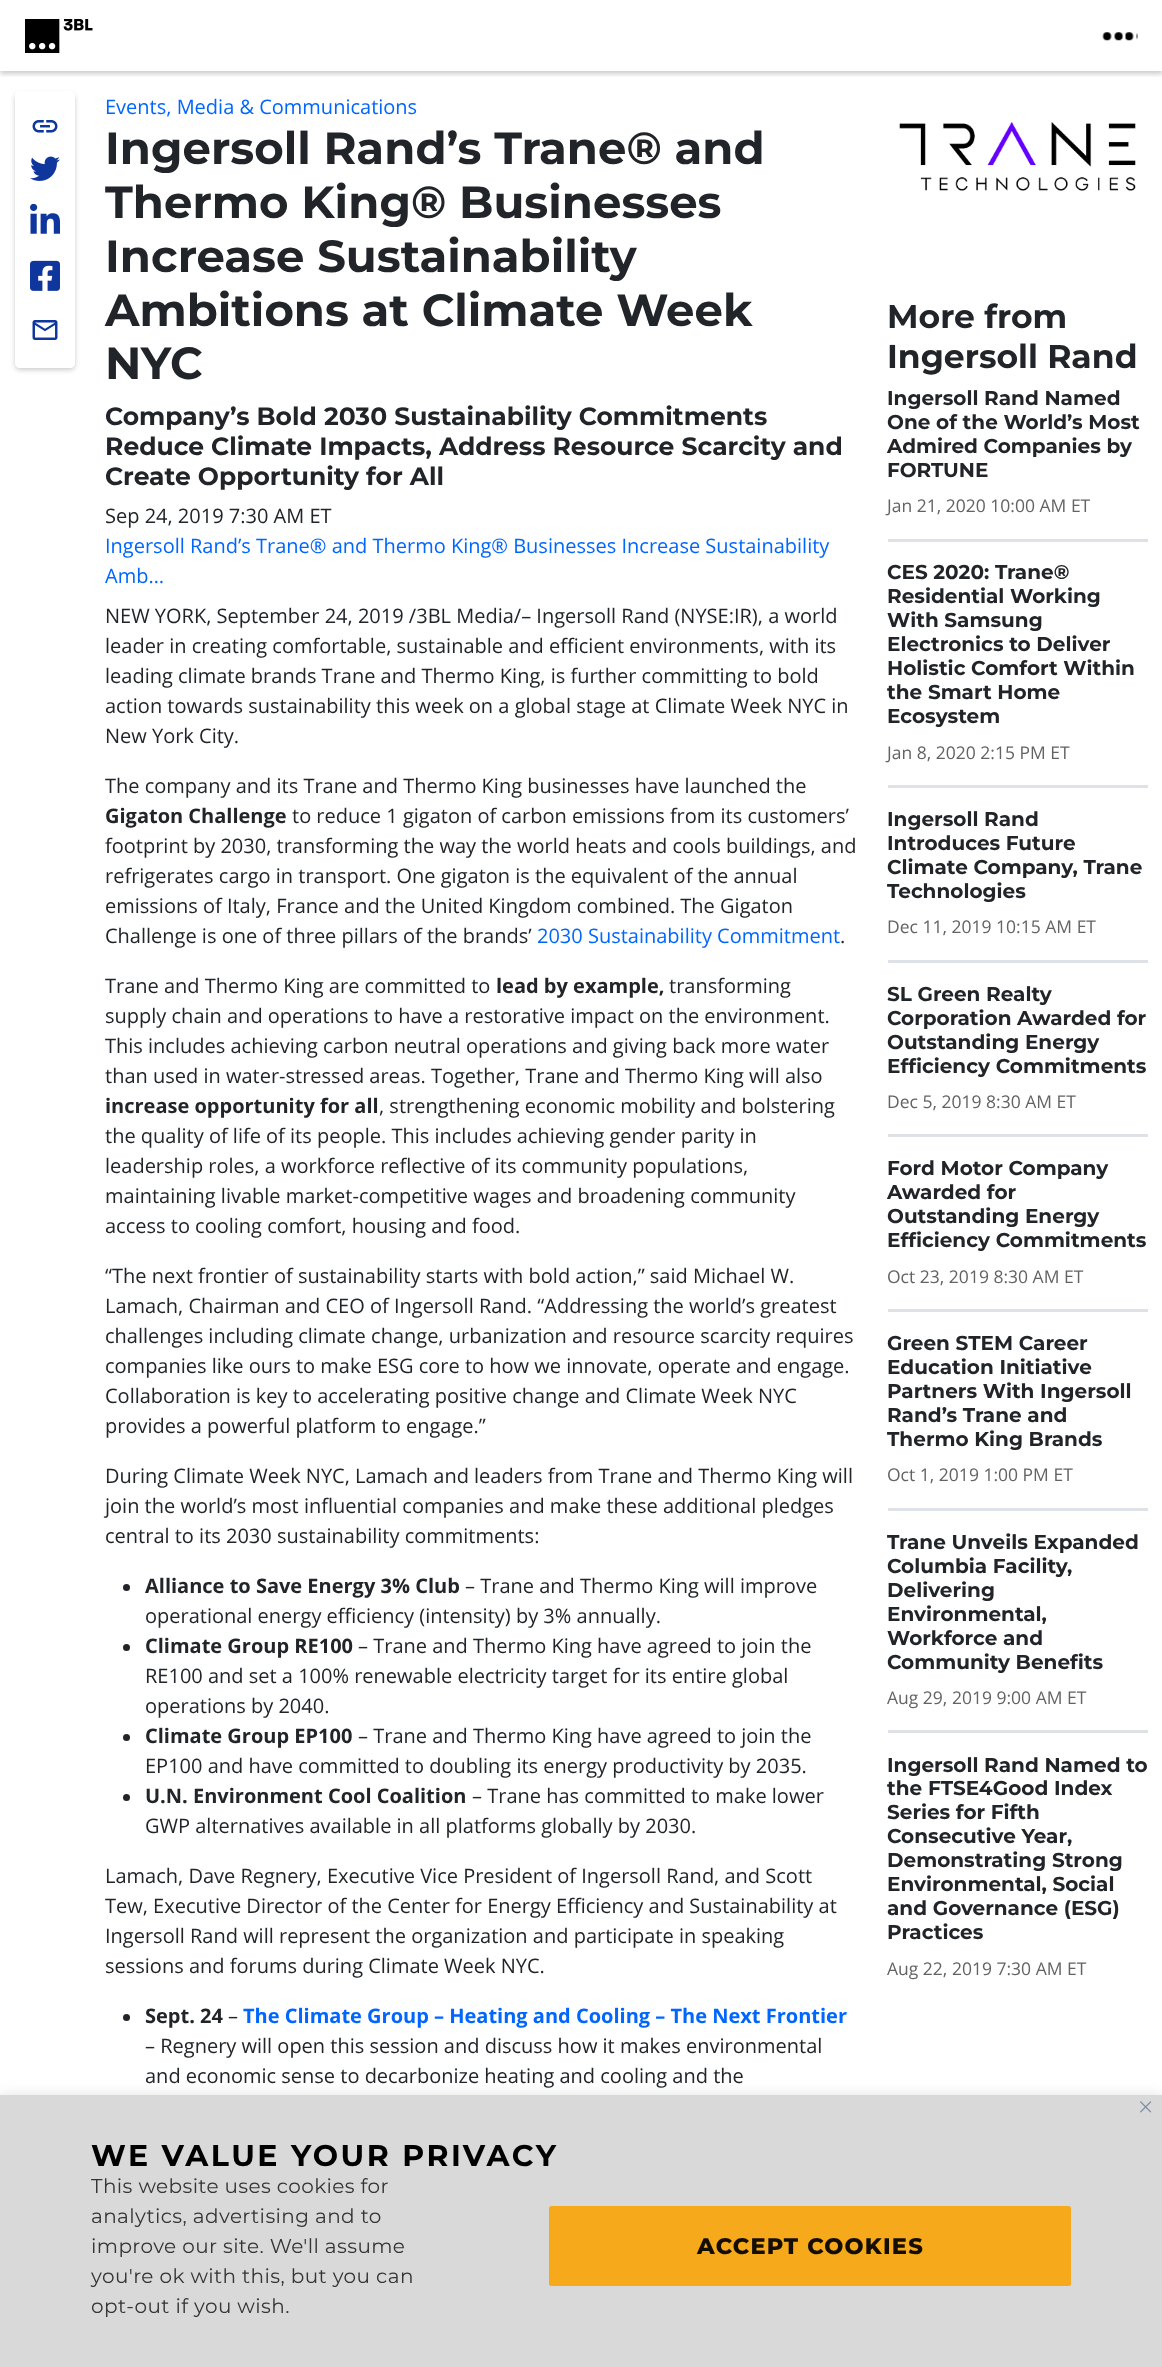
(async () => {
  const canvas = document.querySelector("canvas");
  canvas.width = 1162;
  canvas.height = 2367;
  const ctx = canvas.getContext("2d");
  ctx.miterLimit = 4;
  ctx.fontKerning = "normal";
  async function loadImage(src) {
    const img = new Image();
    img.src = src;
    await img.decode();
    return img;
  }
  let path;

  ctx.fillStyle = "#ffffff";
  ctx.fillRect(0, 0, 1162, 2367);
  ctx.save();
  ctx.beginPath();
  ctx.rect(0, 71, 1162, 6);
  ctx.clip();
  ctx.fillStyle = "rgba(0, 0, 0, 0.2)";
  ctx.filter = "blur(2.5px)";
  ctx.beginPath();
  ctx.rect(0, 3, 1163, 71);
  ctx.fill();
  ctx.filter = "none";
  ctx.restore();
  ctx.drawImage(await loadImage("img/1.png"), 25, 19, 68, 34);
  ctx.drawImage(await loadImage("img/2.png"), 1102, 32, 36, 9);
  ctx.save();
  path = new Path2D("M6 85H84V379H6ZM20 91H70C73 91 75 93 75 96V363C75 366 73 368 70 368H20C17 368 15 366 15 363V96C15 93 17 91 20 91Z");
  ctx.clip(path, "evenodd");
  ctx.fillStyle = "rgba(0, 0, 0, 0.2)";
  ctx.filter = "blur(2.5px)";
  ctx.beginPath();
  ctx.roundRect(15, 94, 60, 276, 5);
  ctx.fill();
  ctx.filter = "none";
  ctx.restore();
  ctx.drawImage(await loadImage("img/3.png"), 32, 120, 26, 13);
  ctx.drawImage(await loadImage("img/4.png"), 30, 156, 30, 25);
  ctx.drawImage(await loadImage("img/5.png"), 30, 204, 30, 30);
  ctx.drawImage(await loadImage("img/6.png"), 30, 260, 30, 31);
  ctx.drawImage(await loadImage("img/7.png"), 32, 320, 26, 20);
  ctx.fillStyle = "#212529";
  ctx.beginPath();
  ctx.arc(126.5, 1587.5, 3.5, 0, Math.PI * 2);
  ctx.fill();
  ctx.beginPath();
  ctx.arc(126.5, 1647.5, 3.5, 0, Math.PI * 2);
  ctx.fill();
  ctx.beginPath();
  ctx.arc(126.5, 1737.5, 3.5, 0, Math.PI * 2);
  ctx.fill();
  ctx.beginPath();
  ctx.arc(126.5, 1797.5, 3.5, 0, Math.PI * 2);
  ctx.fill();
  ctx.beginPath();
  ctx.arc(126.5, 2017.5, 3.5, 0, Math.PI * 2);
  ctx.fill();
  ctx.drawImage(await loadImage("img/8.png"), 899, 121, 237, 70);
  for (const [x, y, w, h, color] of [
    [888, 539, 260, 3, "#dee2e6"],
    [888, 785, 260, 3, "#dee2e6"],
    [888, 960, 260, 3, "#dee2e6"],
    [888, 1134, 260, 3, "#dee2e6"],
    [888, 1309, 260, 3, "#dee2e6"],
    [888, 1508, 260, 3, "#dee2e6"],
    [888, 1730, 260, 3, "#dee2e6"],
  ]) {
    ctx.fillStyle = color;
    ctx.fillRect(x, y, w, h);
  }
  ctx.fillStyle = "rgba(172, 171, 171, 0.3)";
  ctx.filter = "blur(6px)";
  ctx.beginPath();
  ctx.rect(0, 2094, 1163, 272);
  ctx.fill();
  ctx.filter = "none";
  ctx.fillStyle = "#d9d9d9";
  ctx.fillRect(0, 2095, 1162, 272);
  ctx.drawImage(await loadImage("img/9.png"), 1140, 2101, 11, 12);
  ctx.fillStyle = "#f6a91b";
  ctx.beginPath();
  ctx.roundRect(550.5, 2207.5, 519, 77, 1);
  ctx.fill();
  ctx.strokeStyle = "#f6a91b";
  ctx.lineWidth = 3;
  ctx.stroke();
  ctx.font = "20px Open Sans";
  ctx.fillStyle = "#0066ff";
  ctx.fillText("Events, Media & Communications", 105, 114);
  ctx.font = "bold 45px Montserrat";
  ctx.fillStyle = "#212529";
  for (const [text, x, y] of [
    ["Ingersoll Rand’s Trane® and", 105, 164],
    ["Thermo King® Businesses", 105, 218],
    ["Increase Sustainability", 105, 272],
    ["Ambitions at Climate Week", 105, 326],
    ["NYC", 105, 379],
  ]) {
    ctx.fillText(text, x, y);
  }
  ctx.font = "bold 25px Montserrat";
  for (const [text, x, y] of [
    ["Company’s Bold 2030 Sustainability Commitments", 105, 425],
    ["Reduce Climate Impacts, Address Resource Scarcity and", 105, 455],
    ["Create Opportunity for All", 105, 485],
  ]) {
    ctx.fillText(text, x, y);
  }
  ctx.font = "20px Open Sans";
  ctx.fillText("Sep 24, 2019 7:30 AM ET", 105, 523);
  ctx.fillStyle = "#0066ff";
  ctx.fillText("Ingersoll Rand’s Trane® and Thermo King® Businesses Increase Sustainability", 105, 553);
  ctx.fillText("Amb…", 105, 583);
  ctx.fillStyle = "#212529";
  for (const [text, x, y] of [
    ["NEW YORK, September 24, 2019 /3BL Media/– Ingersoll Rand (NYSE:IR), a world", 105, 623],
    ["leader in creating comfortable, sustainable and efficient environments, with its", 105, 653],
    ["leading climate brands Trane and Thermo King, is further committing to bold", 105, 683],
    ["action towards sustainability this week on a global stage at Climate Week NYC in", 105, 713],
    ["New York City.", 105, 743],
    ["The company and its Trane and Thermo King businesses have launched the", 105, 793],
  ]) {
    ctx.fillText(text, x, y);
  }
  ctx.font = "bold 20px Open Sans";
  ctx.fillText("Gigaton Challenge", 105, 823);
  ctx.font = "20px Open Sans";
  for (const [text, x, y] of [
    ["to reduce 1 gigaton of carbon emissions from its customers’", 292, 823],
    ["footprint by 2030, transforming the way the world heats and cools buildings, and", 105, 853],
    ["refrigerates cargo in transport. One gigaton is the equivalent of the annual", 105, 883],
    ["emissions of Italy, France and the United Kingdom combined. The Gigaton", 105, 913],
    ["Challenge is one of three pillars of the brands’", 105, 943],
  ]) {
    ctx.fillText(text, x, y);
  }
  ctx.fillStyle = "#0066ff";
  ctx.fillText("2030 Sustainability Commitment", 537, 943);
  ctx.fillStyle = "#212529";
  ctx.fillText(".", 840, 943);
  ctx.fillText("Trane and Thermo King are committed to", 105, 993);
  ctx.font = "bold 20px Open Sans";
  ctx.fillText("lead by example,", 496, 993);
  ctx.font = "20px Open Sans";
  for (const [text, x, y] of [
    ["transforming", 669, 993],
    ["supply chain and operations to have a restorative impact on the environment.", 105, 1023],
    ["This includes achieving carbon neutral operations and giving back more water", 105, 1053],
    ["than used in water-stressed areas. Together, Trane and Thermo King will also", 105, 1083],
  ]) {
    ctx.fillText(text, x, y);
  }
  ctx.font = "bold 20px Open Sans";
  ctx.fillText("increase opportunity for all", 105, 1113);
  ctx.font = "20px Open Sans";
  for (const [text, x, y] of [
    [", strengthening economic mobility and bolstering", 379, 1113],
    ["the quality of life of its people. This includes achieving gender parity in", 105, 1143],
    ["leadership roles, a workforce reflective of its community populations,", 105, 1173],
    ["maintaining livable market-competitive wages and broadening community", 105, 1203],
    ["access to cooling comfort, housing and food.", 105, 1233],
    ["“The next frontier of sustainability starts with bold action,” said Michael W.", 105, 1283],
    ["Lamach, Chairman and CEO of Ingersoll Rand. “Addressing the world’s greatest", 105, 1313],
    ["challenges including climate change, urbanization and resource scarcity requires", 105, 1343],
    ["companies like ours to make ESG core to how we innovate, operate and engage.", 105, 1373],
    ["Collaboration is key to accelerating positive change and Climate Week NYC", 105, 1403],
    ["provides a powerful platform to engage.”", 105, 1433],
    ["During Climate Week NYC, Lamach and leaders from Trane and Thermo King will", 105, 1483],
    ["join the world’s most influential companies and make these additional pledges", 105, 1513],
    ["central to its 2030 sustainability commitments:", 105, 1543],
  ]) {
    ctx.fillText(text, x, y);
  }
  ctx.font = "bold 20px Open Sans";
  ctx.fillText("Alliance to Save Energy 3% Club", 145, 1593);
  ctx.font = "20px Open Sans";
  ctx.fillText("– Trane and Thermo King will improve", 465, 1593);
  ctx.fillText("operational energy efficiency (intensity) by 3% annually.", 145, 1623);
  ctx.font = "bold 20px Open Sans";
  ctx.fillText("Climate Group RE100", 145, 1653);
  ctx.font = "20px Open Sans";
  for (const [text, x, y] of [
    ["– Trane and Thermo King have agreed to join the", 358, 1653],
    ["RE100 and set a 100% renewable electricity target for its entire global", 145, 1683],
    ["operations by 2040.", 145, 1713],
  ]) {
    ctx.fillText(text, x, y);
  }
  ctx.font = "bold 20px Open Sans";
  ctx.fillText("Climate Group EP100", 145, 1743);
  ctx.font = "20px Open Sans";
  ctx.fillText("– Trane and Thermo King have agreed to join the", 358, 1743);
  ctx.fillText("EP100 and have committed to doubling its energy productivity by 2035.", 145, 1773);
  ctx.font = "bold 20px Open Sans";
  ctx.fillText("U.N. Environment Cool Coalition", 145, 1803);
  ctx.font = "20px Open Sans";
  for (const [text, x, y] of [
    ["– Trane has committed to make lower", 472, 1803],
    ["GWP alternatives available in all platforms globally by 2030.", 145, 1833],
    ["Lamach, Dave Regnery, Executive Vice President of Ingersoll Rand, and Scott", 105, 1883],
    ["Tew, Executive Director of the Center for Energy Efficiency and Sustainability at", 105, 1913],
    ["Ingersoll Rand will represent the organization and participate in speaking", 105, 1943],
    ["sessions and forums during Climate Week NYC.", 105, 1973],
  ]) {
    ctx.fillText(text, x, y);
  }
  ctx.font = "bold 20px Open Sans";
  ctx.fillText("Sept. 24", 145, 2023);
  ctx.font = "20px Open Sans";
  ctx.fillText("–", 228, 2023);
  ctx.font = "bold 20px Open Sans";
  ctx.fillStyle = "#0066ff";
  ctx.fillText("The Climate Group – Heating and Cooling – The Next Frontier", 243, 2023);
  ctx.font = "20px Open Sans";
  ctx.fillStyle = "#212529";
  ctx.fillText("– Regnery will open this session and discuss how it makes environmental", 145, 2053);
  ctx.fillText("and economic sense to decarbonize heating and cooling and the", 145, 2083);
  ctx.font = "bold 33px Montserrat";
  ctx.fillText("More from", 887, 328);
  ctx.fillText("Ingersoll Rand", 887, 368);
  ctx.font = "bold 20px Montserrat";
  for (const [text, x, y] of [
    ["Ingersoll Rand Named", 887, 405],
    ["One of the World’s Most", 887, 429],
    ["Admired Companies by", 887, 453],
    ["FORTUNE", 887, 477],
  ]) {
    ctx.fillText(text, x, y);
  }
  ctx.font = "17.5px Open Sans";
  ctx.fillStyle = "#636363";
  ctx.fillText("Jan 21, 2020 10:00 AM ET", 887, 512);
  ctx.font = "bold 20px Montserrat";
  ctx.fillStyle = "#212529";
  for (const [text, x, y] of [
    ["CES 2020: Trane®", 887, 579],
    ["Residential Working", 887, 603],
    ["With Samsung", 887, 627],
    ["Electronics to Deliver", 887, 651],
    ["Holistic Comfort Within", 887, 675],
    ["the Smart Home", 887, 699],
    ["Ecosystem", 887, 723],
  ]) {
    ctx.fillText(text, x, y);
  }
  ctx.font = "17.5px Open Sans";
  ctx.fillStyle = "#636363";
  ctx.fillText("Jan 8, 2020 2:15 PM ET", 887, 759);
  ctx.font = "bold 20px Montserrat";
  ctx.fillStyle = "#212529";
  for (const [text, x, y] of [
    ["Ingersoll Rand", 887, 826],
    ["Introduces Future", 887, 850],
    ["Climate Company, Trane", 887, 874],
    ["Technologies", 887, 898],
  ]) {
    ctx.fillText(text, x, y);
  }
  ctx.font = "17.5px Open Sans";
  ctx.fillStyle = "#636363";
  ctx.fillText("Dec 11, 2019 10:15 AM ET", 887, 933);
  ctx.font = "bold 20px Montserrat";
  ctx.fillStyle = "#212529";
  for (const [text, x, y] of [
    ["SL Green Realty", 887, 1001],
    ["Corporation Awarded for", 887, 1025],
    ["Outstanding Energy", 887, 1049],
    ["Efficiency Commitments", 887, 1073],
  ]) {
    ctx.fillText(text, x, y);
  }
  ctx.font = "17.5px Open Sans";
  ctx.fillStyle = "#636363";
  ctx.fillText("Dec 5, 2019 8:30 AM ET", 887, 1108);
  ctx.font = "bold 20px Montserrat";
  ctx.fillStyle = "#212529";
  for (const [text, x, y] of [
    ["Ford Motor Company", 887, 1175],
    ["Awarded for", 887, 1199],
    ["Outstanding Energy", 887, 1223],
    ["Efficiency Commitments", 887, 1247],
  ]) {
    ctx.fillText(text, x, y);
  }
  ctx.font = "17.5px Open Sans";
  ctx.fillStyle = "#636363";
  ctx.fillText("Oct 23, 2019 8:30 AM ET", 887, 1283);
  ctx.font = "bold 20px Montserrat";
  ctx.fillStyle = "#212529";
  for (const [text, x, y] of [
    ["Green STEM Career", 887, 1350],
    ["Education Initiative", 887, 1374],
    ["Partners With Ingersoll", 887, 1398],
    ["Rand’s Trane and", 887, 1422],
    ["Thermo King Brands", 887, 1446],
  ]) {
    ctx.fillText(text, x, y);
  }
  ctx.font = "17.5px Open Sans";
  ctx.fillStyle = "#636363";
  ctx.fillText("Oct 1, 2019 1:00 PM ET", 887, 1481);
  ctx.font = "bold 20px Montserrat";
  ctx.fillStyle = "#212529";
  for (const [text, x, y] of [
    ["Trane Unveils Expanded", 887, 1549],
    ["Columbia Facility,", 887, 1573],
    ["Delivering", 887, 1597],
    ["Environmental,", 887, 1621],
    ["Workforce and", 887, 1645],
    ["Community Benefits", 887, 1669],
  ]) {
    ctx.fillText(text, x, y);
  }
  ctx.font = "17.5px Open Sans";
  ctx.fillStyle = "#636363";
  ctx.fillText("Aug 29, 2019 9:00 AM ET", 887, 1704);
  ctx.font = "bold 20px Montserrat";
  ctx.fillStyle = "#212529";
  for (const [text, x, y] of [
    ["Ingersoll Rand Named to", 887, 1772],
    ["the FTSE4Good Index", 887, 1795],
    ["Series for Fifth", 887, 1819],
    ["Consecutive Year,", 887, 1843],
    ["Demonstrating Strong", 887, 1867],
    ["Environmental, Social", 887, 1891],
    ["and Governance (ESG)", 887, 1915],
    ["Practices", 887, 1939],
  ]) {
    ctx.fillText(text, x, y);
  }
  ctx.font = "17.5px Open Sans";
  ctx.fillStyle = "#636363";
  ctx.fillText("Aug 22, 2019 7:30 AM ET", 887, 1975);
  ctx.letterSpacing = "2.5px";
  ctx.font = "bold 30px Montserrat";
  ctx.fillStyle = "#000000";
  ctx.fillText("WE VALUE YOUR PRIVACY", 91, 2166);
  ctx.letterSpacing = "0.4px";
  ctx.font = "20px Montserrat";
  ctx.fillStyle = "#353535";
  for (const [text, x, y] of [
    ["This website uses cookies for", 91, 2193],
    ["analytics, advertising and to", 91, 2223],
    ["improve our site. We'll assume", 91, 2253],
    ["you're ok with this, but you can", 91, 2283],
    ["opt-out if you wish.", 91, 2313],
  ]) {
    ctx.fillText(text, x, y);
  }
  ctx.letterSpacing = "1.25px";
  ctx.font = "800 22.5px Montserrat";
  ctx.fillStyle = "#140e02";
  ctx.fillText("ACCEPT COOKIES", 697, 2254);
})();
